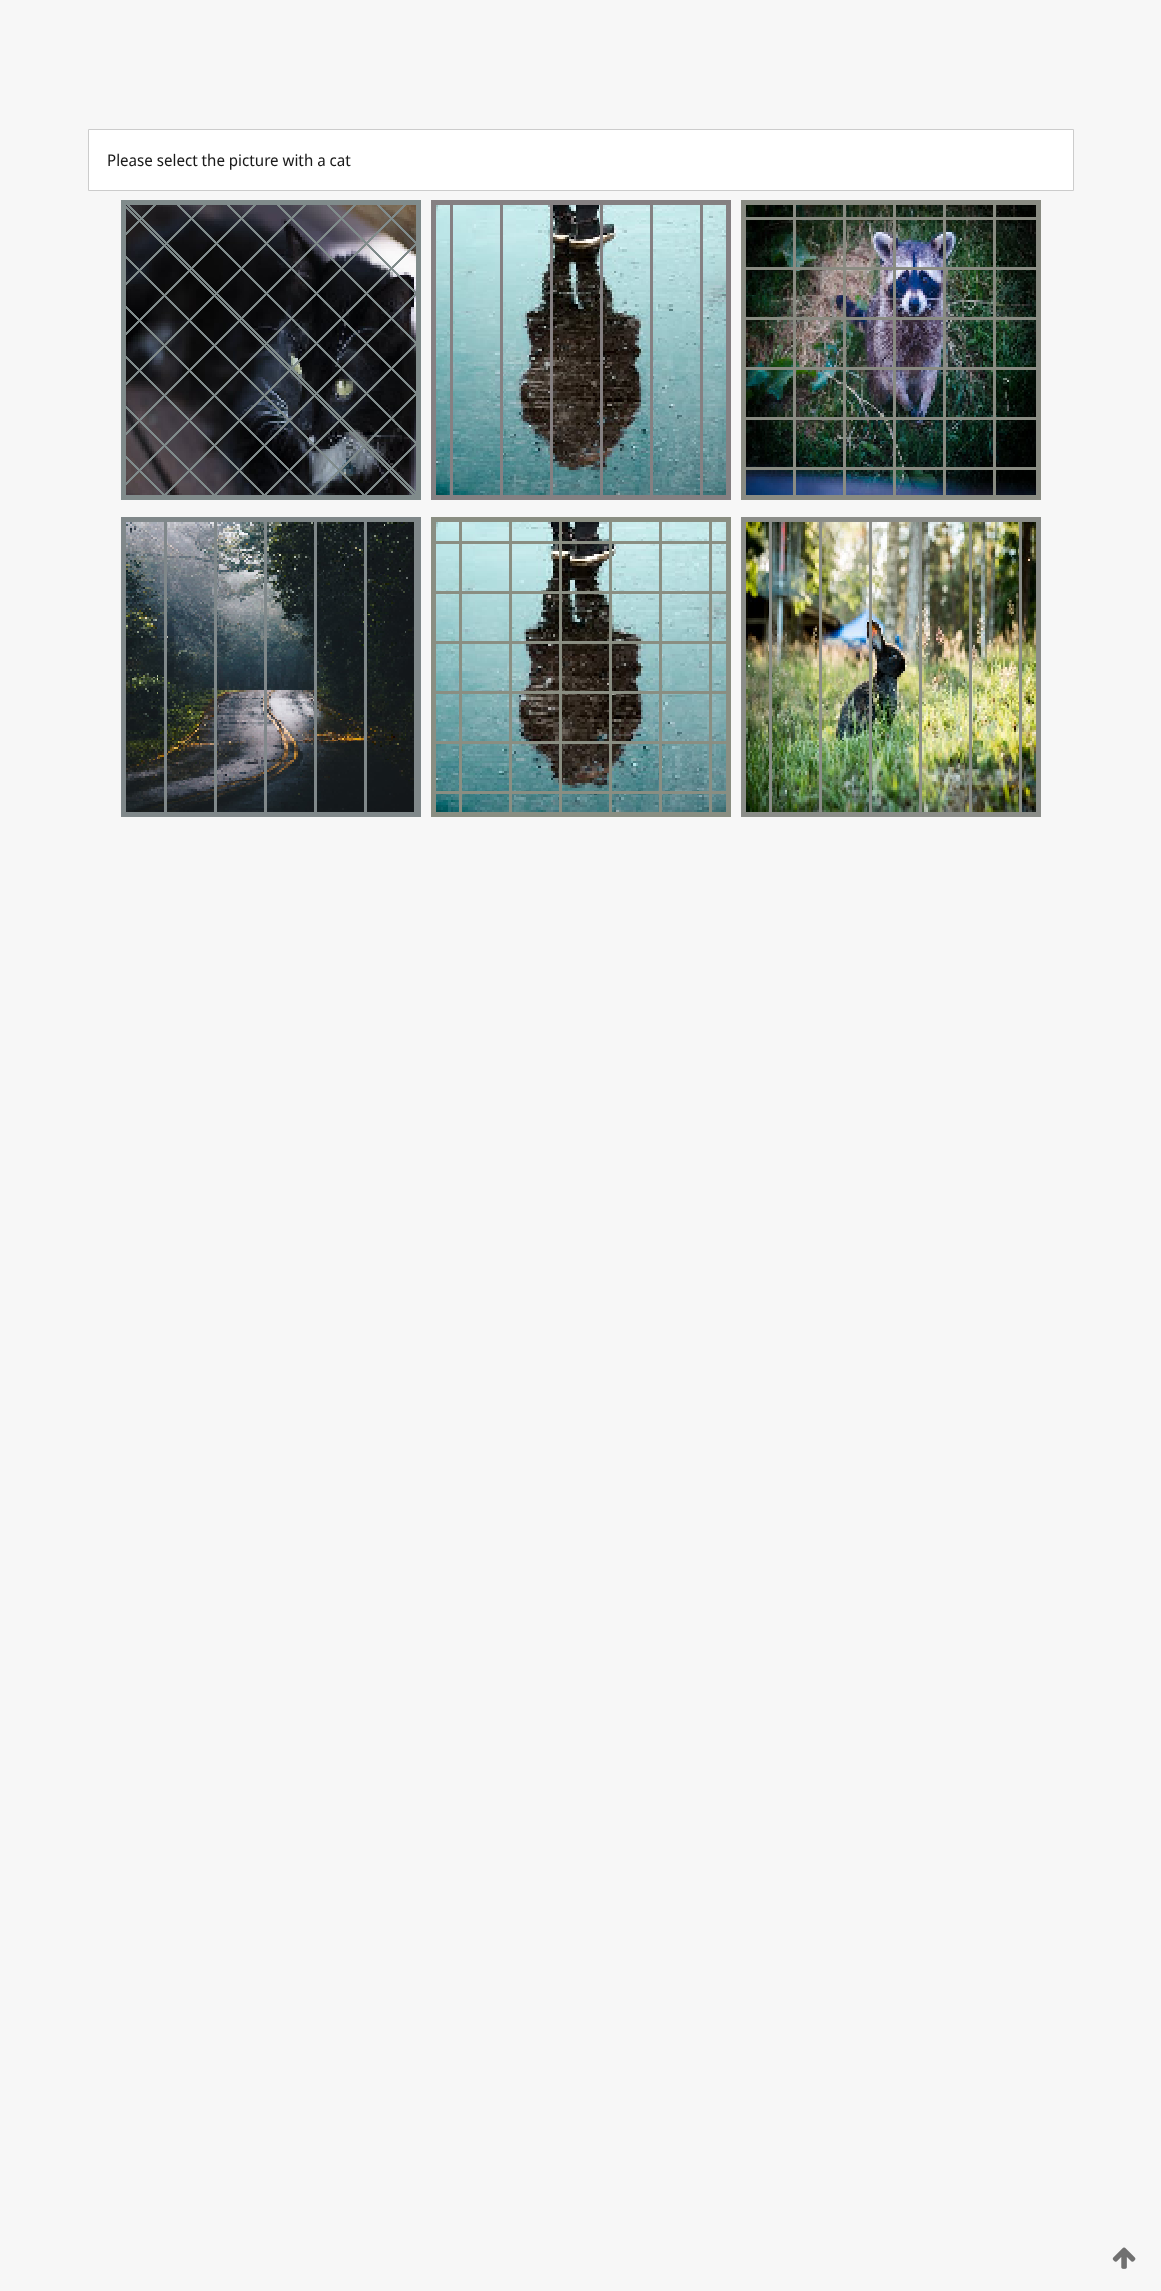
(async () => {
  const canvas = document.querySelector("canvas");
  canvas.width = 1161;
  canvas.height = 2291;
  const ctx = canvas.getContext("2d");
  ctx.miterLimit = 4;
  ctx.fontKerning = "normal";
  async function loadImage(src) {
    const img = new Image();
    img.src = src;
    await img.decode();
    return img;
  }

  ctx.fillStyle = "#f7f7f7";
  ctx.fillRect(0, 0, 1161, 2291);
  ctx.fillStyle = "#ffffff";
  ctx.beginPath();
  ctx.rect(88.5, 129.5, 985, 61);
  ctx.fill();
  ctx.strokeStyle = "#cccccc";
  ctx.stroke();
  ctx.drawImage(await loadImage("img/1.png"), 121, 200, 300, 300);
  ctx.drawImage(await loadImage("img/2.png"), 431, 200, 300, 300);
  ctx.drawImage(await loadImage("img/3.png"), 741, 200, 300, 300);
  ctx.drawImage(await loadImage("img/4.png"), 121, 517, 300, 300);
  ctx.drawImage(await loadImage("img/5.png"), 431, 517, 300, 300);
  ctx.drawImage(await loadImage("img/6.png"), 741, 517, 300, 300);
  ctx.drawImage(await loadImage("img/7.png"), 1112, 2247, 24, 22);
  ctx.font = "16px Noto Sans Display";
  ctx.fillStyle = "#1a1a1a";
  ctx.fillText("Please select the picture with a cat", 107, 166);
})();
